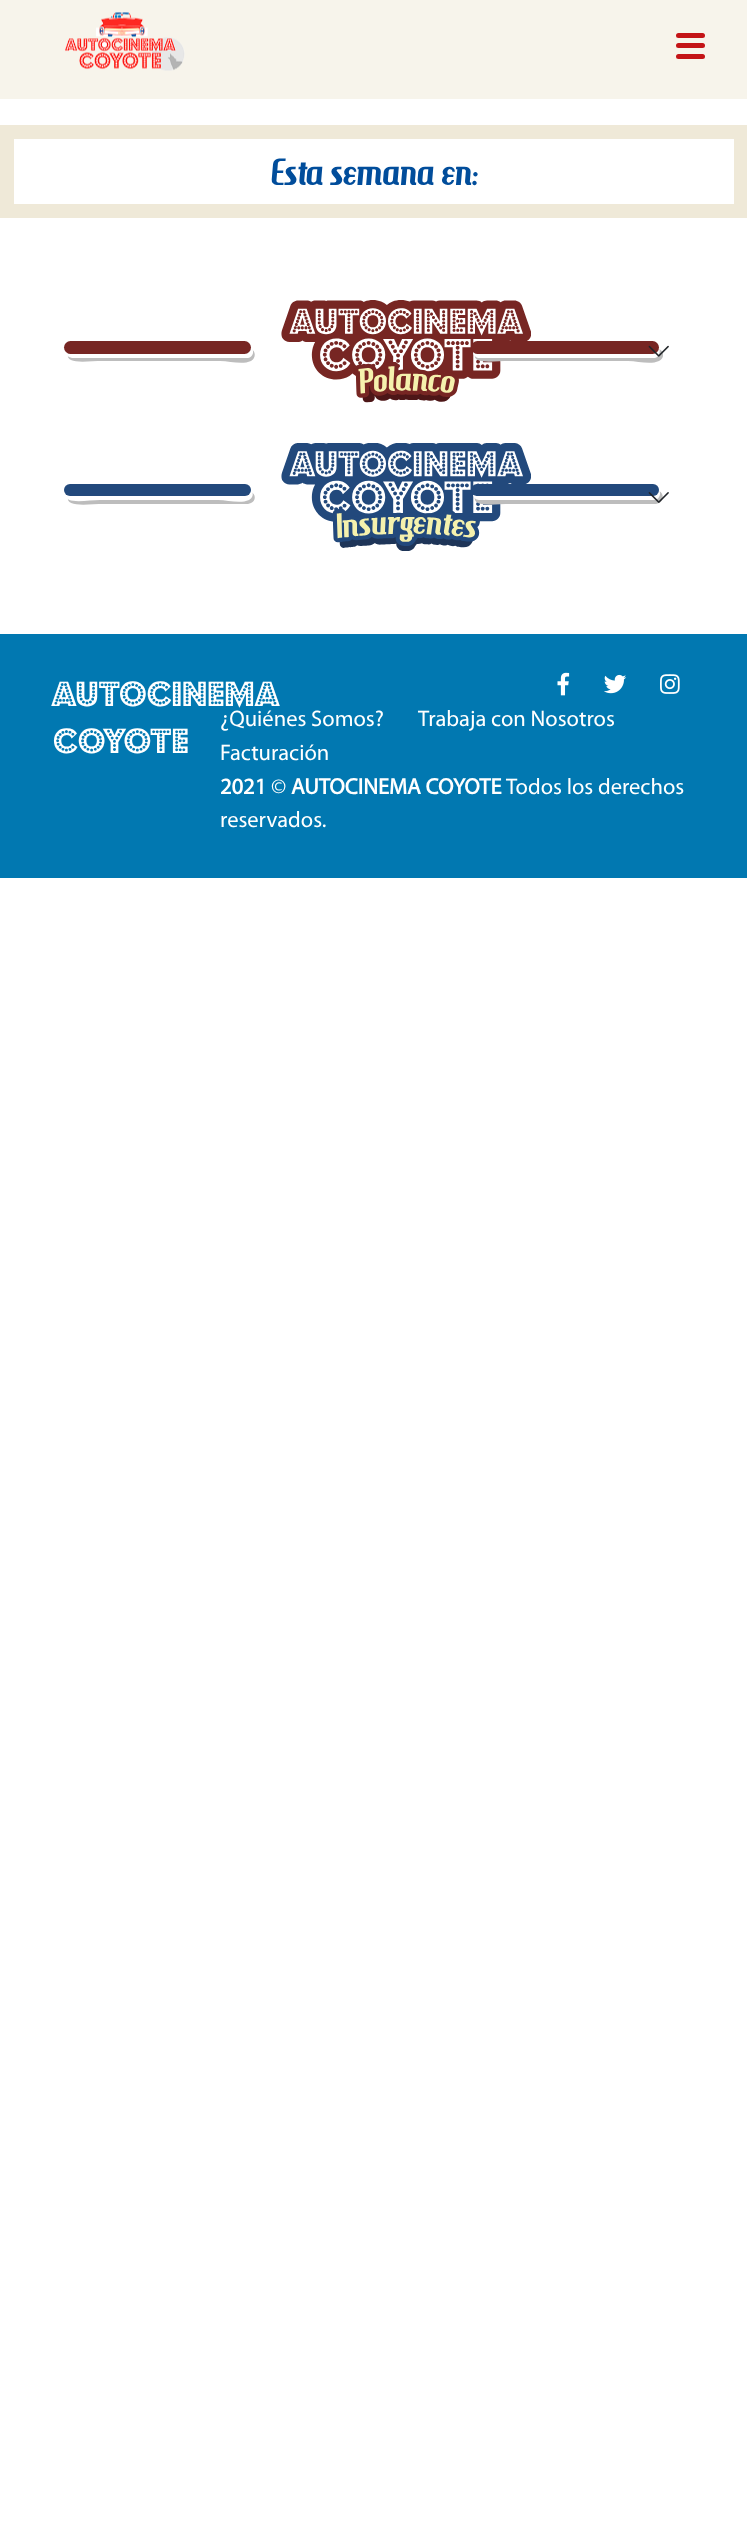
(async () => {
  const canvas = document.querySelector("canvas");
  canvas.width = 747;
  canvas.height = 2543;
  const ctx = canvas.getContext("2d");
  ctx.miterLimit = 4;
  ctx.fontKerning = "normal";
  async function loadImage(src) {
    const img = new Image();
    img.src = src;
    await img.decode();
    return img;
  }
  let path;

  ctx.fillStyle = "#ffffff";
  ctx.fillRect(0, 0, 747, 2543);
  ctx.fillStyle = "#f7f4eb";
  ctx.fillRect(0, 0, 747, 99);
  ctx.drawImage(await loadImage("img/1.png"), 65, 12, 120, 59);
  ctx.fillStyle = "#c41417";
  ctx.beginPath();
  ctx.roundRect(676, 33, 29, 5, 2.5);
  ctx.fill();
  ctx.beginPath();
  ctx.roundRect(676, 43, 29, 5, 2.5);
  ctx.fill();
  ctx.beginPath();
  ctx.roundRect(676, 54, 29, 5, 2.5);
  ctx.fill();
  ctx.strokeStyle = "#efe9d8";
  ctx.lineWidth = 14;
  ctx.strokeRect(7, 132, 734, 79);
  ctx.fillStyle = "#bdbdbd";
  path = new Path2D("M68 353C65 365 86 361 103 361H220C230 361 242 365 251 361C256 358 256 351 251 349C250 352 248 354 245 354Z");
  ctx.fill(path);
  ctx.fillStyle = "#ffffff";
  path = new Path2D("M65 351C65 354 67 356 69 357L72 358H248C253 357 255 351 251 347V348C251 351 248 354 245 354H70C68 354 66 353 65 351Z");
  ctx.fill(path);
  ctx.fillStyle = "#772623";
  ctx.beginPath();
  ctx.roundRect(64, 341, 187, 13, 6.5);
  ctx.fill();
  ctx.drawImage(await loadImage("img/2.png"), 281, 300, 250, 103);
  ctx.fillStyle = "#bdbdbd";
  path = new Path2D("M475 353C472 365 492 361 510 361H628C638 361 650 365 659 361C665 358 664 351 659 349C658 352 655 354 652 354H478Z");
  ctx.fill(path);
  ctx.fillStyle = "#ffffff";
  path = new Path2D("M473 352C473 355 475 357 478 358H655C659 357 661 351 659 348C659 351 656 354 652 354H478C476 354 474 353 473 352Z");
  ctx.fill(path);
  ctx.fillStyle = "#772623";
  ctx.beginPath();
  ctx.roundRect(471, 341, 188, 13, 6.5);
  ctx.fill();
  ctx.drawImage(await loadImage("img/3.png"), 648, 345, 21, 12);
  ctx.fillStyle = "#bdbdbd";
  path = new Path2D("M68 496C65 508 87 504 104 504H248L251 503C256 501 256 494 251 492C250 494 248 496 246 496Z");
  ctx.fill(path);
  ctx.fillStyle = "#ffffff";
  path = new Path2D("M65 494C65 505 87 500 100 500H218C228 500 240 504 249 500C253 498 254 493 251 490C251 493 248 496 245 496H70C68 496 66 495 65 494Z");
  ctx.fill(path);
  ctx.fillStyle = "#22497c";
  ctx.beginPath();
  ctx.roundRect(64, 484, 187, 12, 6);
  ctx.fill();
  ctx.drawImage(await loadImage("img/4.png"), 281, 443, 250, 108);
  ctx.fillStyle = "#bdbdbd";
  path = new Path2D("M475 496C472 508 493 504 511 504H656L659 503C664 501 664 493 659 491C658 494 655 496 652 496H478Z");
  ctx.fill(path);
  ctx.fillStyle = "#ffffff";
  path = new Path2D("M473 494C473 497 476 500 479 500H654C657 500 660 497 660 494C660 493 660 491 659 490C659 494 656 496 652 496H478C476 496 474 496 473 494Z");
  ctx.fill(path);
  ctx.fillStyle = "#22497c";
  ctx.beginPath();
  ctx.roundRect(471, 484, 188, 12, 6);
  ctx.fill();
  ctx.drawImage(await loadImage("img/5.png"), 648, 492, 21, 11);
  ctx.fillStyle = "#0178b1";
  ctx.fillRect(0, 634, 747, 244);
  ctx.drawImage(await loadImage("img/6.png"), 557, 672, 13, 24);
  ctx.drawImage(await loadImage("img/7.png"), 604, 674, 23, 20);
  ctx.drawImage(await loadImage("img/8.png"), 660, 674, 20, 20);
  ctx.font = "36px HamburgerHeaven";
  ctx.fillStyle = "#014d9b";
  ctx.fillText("Esta semana en:", 271, 185);
  ctx.font = "38.75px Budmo";
  ctx.fillStyle = "#ffffff";
  ctx.fillText("AUTOCINEMA", 51, 706);
  ctx.fillText("COYOTE", 53, 753);
  ctx.font = "22.5px Myriad";
  for (const [text, x, y] of [
    ["¿Quiénes Somos?", 220, 726],
    ["Trabaja con Nosotros", 418, 726],
    ["Facturación", 220, 760],
  ]) {
    ctx.fillText(text, x, y);
  }
  ctx.font = "bold 22.5px Myriad";
  ctx.fillText("2021", 220, 794);
  ctx.font = "22.5px Myriad";
  ctx.fillText("©", 271, 794);
  ctx.font = "bold 22.5px Myriad";
  ctx.fillText("AUTOCINEMA COYOTE", 291, 794);
  ctx.font = "22.5px Myriad";
  ctx.fillText("Todos los derechos", 506, 794);
  ctx.fillText("reservados.", 220, 827);
})();
